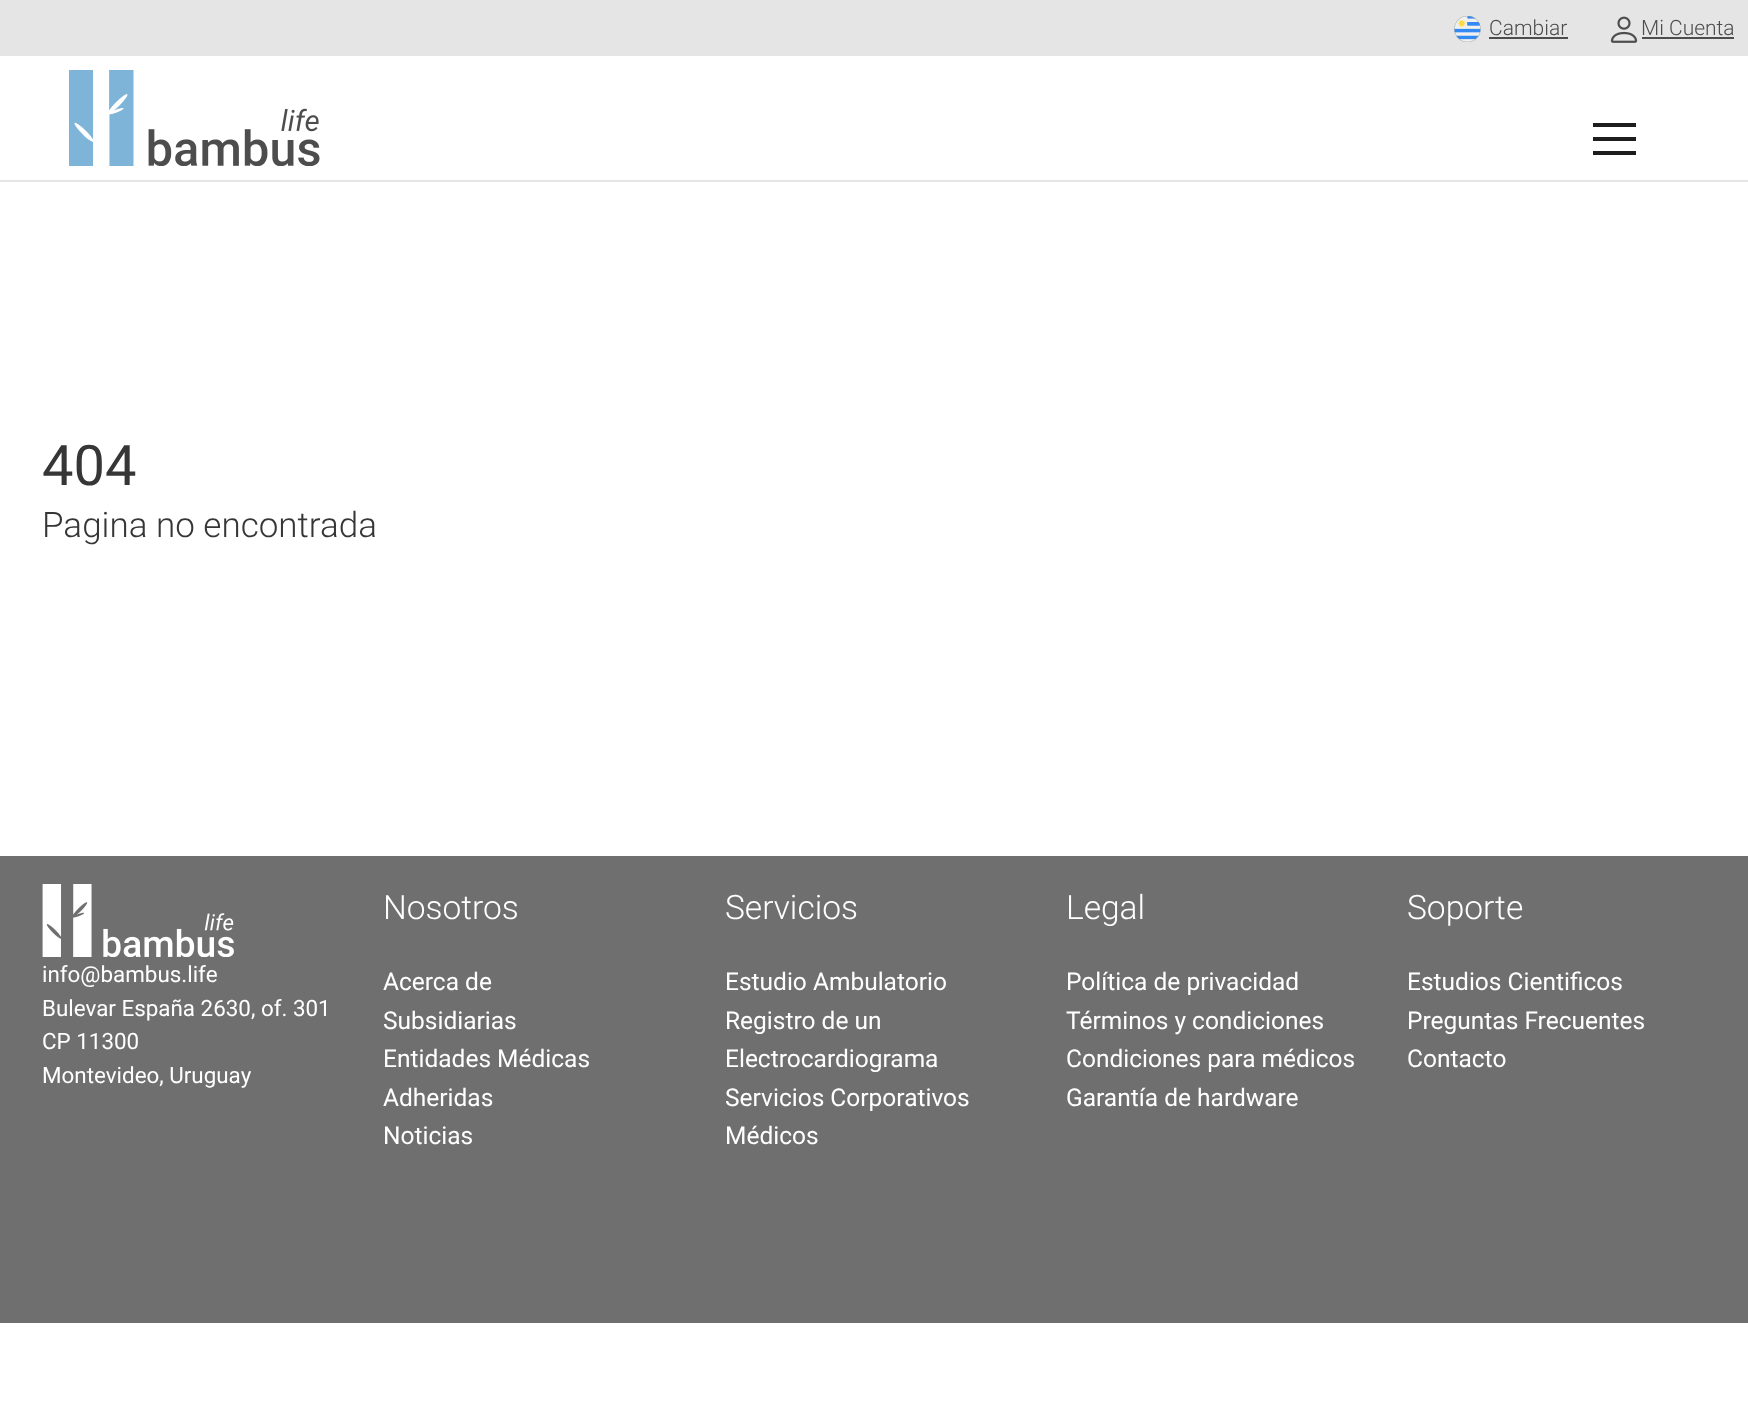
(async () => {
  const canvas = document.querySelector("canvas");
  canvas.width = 1748;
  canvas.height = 1410;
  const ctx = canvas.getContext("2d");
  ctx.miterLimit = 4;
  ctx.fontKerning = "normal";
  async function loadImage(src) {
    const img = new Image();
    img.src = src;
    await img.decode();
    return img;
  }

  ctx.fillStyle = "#ffffff";
  ctx.fillRect(0, 0, 1748, 1410);
  ctx.fillStyle = "#e5e5e5";
  ctx.fillRect(0, 0, 1748, 56);
  ctx.drawImage(await loadImage("img/1.png"), 1454, 16, 27, 26);
  ctx.fillStyle = "#4d4d4d";
  ctx.fillRect(1489, 37, 79, 2);
  ctx.drawImage(await loadImage("img/2.png"), 1610, 16, 28, 27);
  ctx.fillRect(1642, 37, 92, 2);
  ctx.fillStyle = "#e5e5e5";
  ctx.fillRect(0, 180, 1748, 2);
  ctx.drawImage(await loadImage("img/3.png"), 69, 70, 251, 96);
  for (const [x, y, w, h, color] of [
    [1593, 123, 43, 4, "#1d1d1d"],
    [1593, 137, 43, 4, "#1d1d1d"],
    [1593, 151, 43, 4, "#1d1d1d"],
    [0, 856, 1748, 467, "#706f6f"],
  ]) {
    ctx.fillStyle = color;
    ctx.fillRect(x, y, w, h);
  }
  ctx.drawImage(await loadImage("img/4.png"), 42, 884, 192, 73);
  ctx.font = "300 21px Roboto";
  ctx.fillStyle = "#4d4d4d";
  ctx.fillText("Cambiar", 1489, 35);
  ctx.fillText("Mi Cuenta", 1641, 35);
  ctx.font = "56px Roboto";
  ctx.fillStyle = "#363636";
  ctx.fillText("404", 42, 485);
  ctx.font = "300 35px Roboto";
  ctx.fillText("Pagina no encontrada", 42, 537);
  ctx.font = "22.4px Roboto";
  ctx.fillStyle = "#ffffff";
  for (const [text, x, y] of [
    ["info@bambus.life", 42, 982],
    ["Bulevar España 2630, of. 301", 42, 1016],
    ["CP 11300", 42, 1049],
    ["Montevideo, Uruguay", 42, 1083],
  ]) {
    ctx.fillText(text, x, y);
  }
  ctx.font = "300 33.5px Roboto";
  ctx.fillText("Nosotros", 383, 919);
  ctx.font = "24.5px Roboto";
  for (const [text, x, y] of [
    ["Acerca de", 383, 990],
    ["Subsidiarias", 383, 1029],
    ["Entidades Médicas", 383, 1067],
    ["Adheridas", 383, 1106],
    ["Noticias", 383, 1144],
  ]) {
    ctx.fillText(text, x, y);
  }
  ctx.font = "300 33.5px Roboto";
  ctx.fillText("Servicios", 725, 919);
  ctx.font = "24.5px Roboto";
  for (const [text, x, y] of [
    ["Estudio Ambulatorio", 725, 990],
    ["Registro de un", 725, 1029],
    ["Electrocardiograma", 725, 1067],
    ["Servicios Corporativos", 725, 1106],
    ["Médicos", 725, 1144],
  ]) {
    ctx.fillText(text, x, y);
  }
  ctx.font = "300 33.5px Roboto";
  ctx.fillText("Legal", 1066, 919);
  ctx.font = "24.5px Roboto";
  for (const [text, x, y] of [
    ["Política de privacidad", 1066, 990],
    ["Términos y condiciones", 1066, 1029],
    ["Condiciones para médicos", 1066, 1067],
    ["Garantía de hardware", 1066, 1106],
  ]) {
    ctx.fillText(text, x, y);
  }
  ctx.font = "300 33.5px Roboto";
  ctx.fillText("Soporte", 1407, 919);
  ctx.font = "24.5px Roboto";
  for (const [text, x, y] of [
    ["Estudios Cientificos", 1407, 990],
    ["Preguntas Frecuentes", 1407, 1029],
    ["Contacto", 1407, 1067],
  ]) {
    ctx.fillText(text, x, y);
  }
})();
